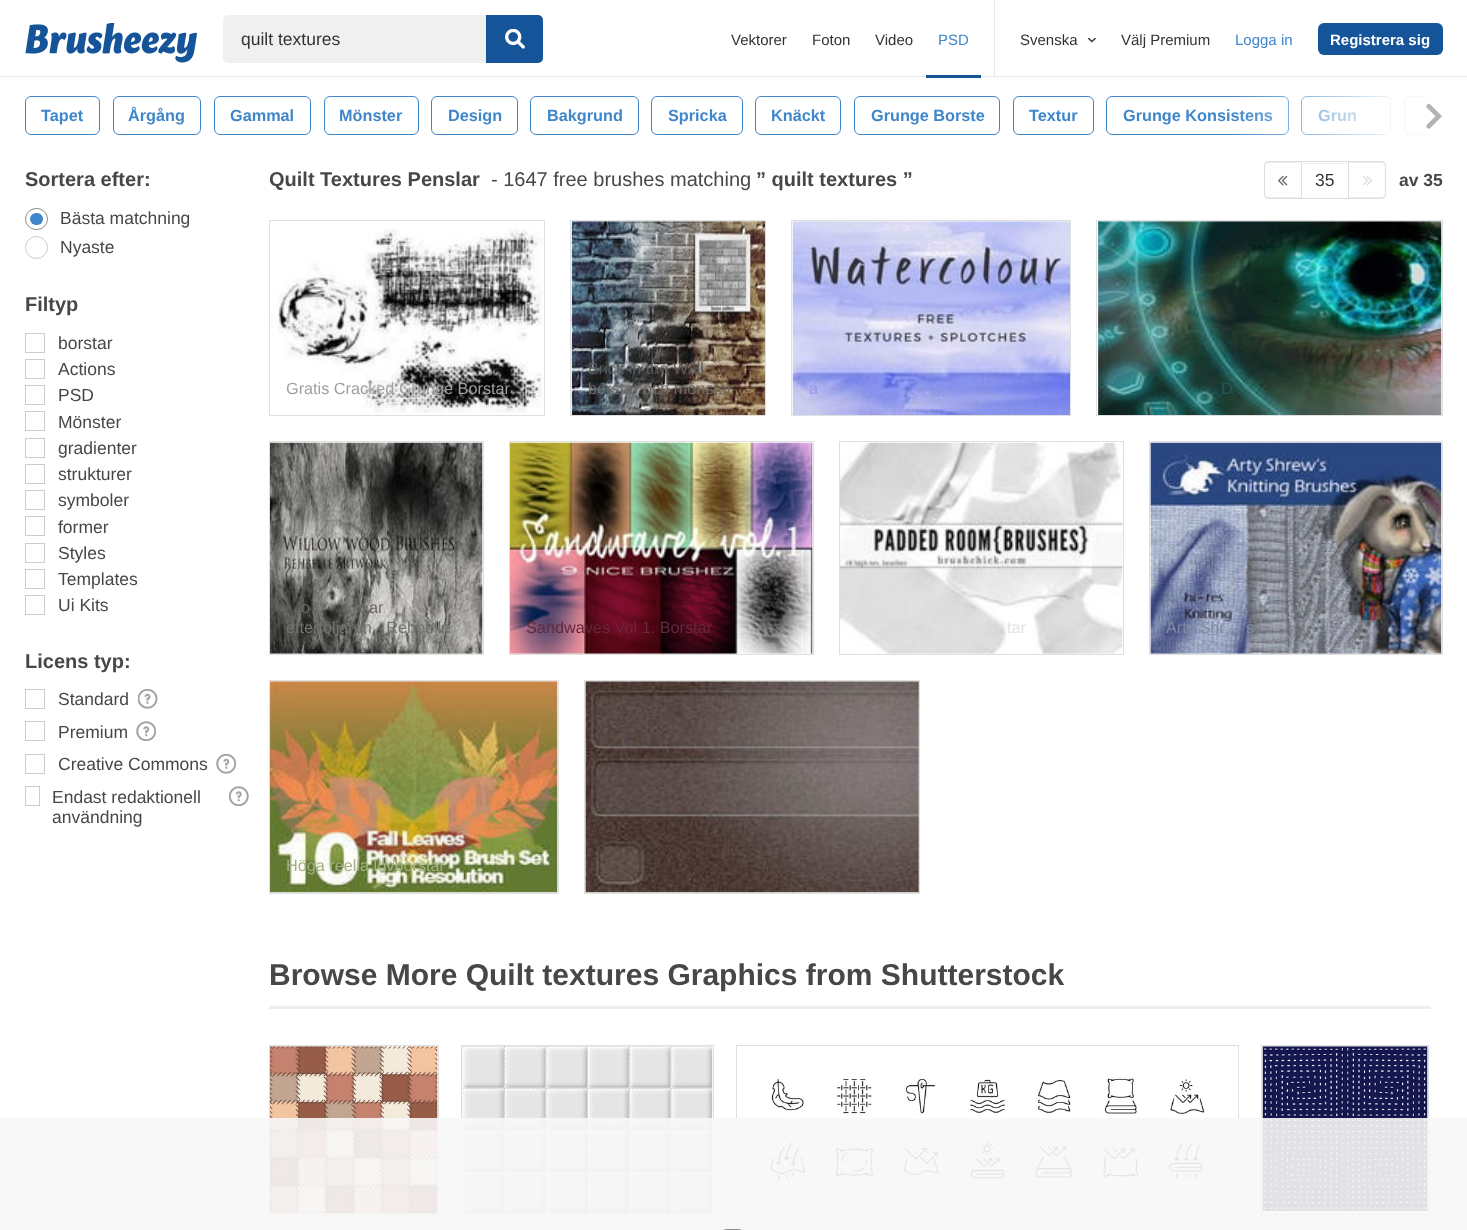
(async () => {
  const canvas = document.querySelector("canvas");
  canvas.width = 1467;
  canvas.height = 1230;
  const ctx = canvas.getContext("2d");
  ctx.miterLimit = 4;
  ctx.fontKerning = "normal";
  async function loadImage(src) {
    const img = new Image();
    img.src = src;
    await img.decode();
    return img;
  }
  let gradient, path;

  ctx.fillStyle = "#ffffff";
  ctx.fillRect(0, 0, 1467, 1230);
  ctx.fillStyle = "#e8e8e8";
  ctx.fillRect(0, 76, 1467, 1);
  ctx.drawImage(await loadImage("img/1.png"), 25, 23, 172, 40);
  ctx.fillStyle = "#f0f0f0";
  ctx.beginPath();
  ctx.roundRect(223, 15, 320, 48, 5);
  ctx.fill();
  ctx.fillStyle = "#155499";
  ctx.beginPath();
  ctx.roundRect(486, 15, 57, 48, [0, 5, 5, 0]);
  ctx.fill();
  ctx.drawImage(await loadImage("img/2.png"), 505, 29, 20, 20);
  ctx.fillRect(926, 75, 55, 3);
  ctx.fillStyle = "#e8e8e8";
  ctx.fillRect(994, 0, 1, 78);
  ctx.drawImage(await loadImage("img/3.png"), 1088, 38, 8, 5);
  ctx.fillStyle = "#155499";
  ctx.beginPath();
  ctx.roundRect(1318, 23, 125, 32, 6);
  ctx.fill();
  ctx.beginPath();
  ctx.roundRect(25.5, 96.5, 74, 38, 5.5);
  ctx.strokeStyle = "#3f86ca";
  ctx.stroke();
  ctx.beginPath();
  ctx.roundRect(113.5, 96.5, 87, 38, 5.5);
  ctx.stroke();
  ctx.beginPath();
  ctx.roundRect(214.5, 96.5, 96, 38, 5.5);
  ctx.stroke();
  ctx.beginPath();
  ctx.roundRect(324.5, 96.5, 94, 38, 5.5);
  ctx.stroke();
  ctx.beginPath();
  ctx.roundRect(431.5, 96.5, 86, 38, 5.5);
  ctx.stroke();
  ctx.beginPath();
  ctx.roundRect(530.5, 96.5, 108, 38, 5.5);
  ctx.stroke();
  ctx.beginPath();
  ctx.roundRect(651.5, 96.5, 91, 38, 5.5);
  ctx.stroke();
  ctx.beginPath();
  ctx.roundRect(755.5, 96.5, 85, 38, 5.5);
  ctx.stroke();
  ctx.beginPath();
  ctx.roundRect(854.5, 96.5, 145, 38, 5.5);
  ctx.stroke();
  ctx.beginPath();
  ctx.roundRect(1013.5, 96.5, 80, 38, 5.5);
  ctx.stroke();
  ctx.beginPath();
  ctx.roundRect(1106.5, 96.5, 182, 38, 5.5);
  ctx.stroke();
  ctx.beginPath();
  ctx.roundRect(1301.5, 96.5, 89, 38, 5.5);
  ctx.stroke();
  ctx.save();
  ctx.beginPath();
  ctx.rect(25, 96, 1418, 55);
  ctx.clip();
  ctx.beginPath();
  ctx.roundRect(1404.5, 96.5, 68, 38, 5.5);
  ctx.stroke();
  ctx.restore();
  ctx.beginPath();
  ctx.roundRect(25.5, 208.5, 22, 21, 10.5);
  ctx.strokeStyle = "#909090";
  ctx.stroke();
  ctx.fillStyle = "#3f86ca";
  ctx.beginPath();
  ctx.roundRect(30, 213, 13, 12, 6);
  ctx.fill();
  ctx.beginPath();
  ctx.arc(36.5, 247.5, 11, 0, Math.PI * 2);
  ctx.strokeStyle = "#cccccc";
  ctx.stroke();
  ctx.strokeRect(25.5, 333.5, 19, 19);
  ctx.strokeRect(25.5, 359.5, 19, 19);
  ctx.strokeRect(25.5, 385.5, 19, 19);
  ctx.strokeRect(25.5, 411.5, 19, 19);
  ctx.strokeRect(25.5, 438.5, 19, 19);
  ctx.strokeRect(25.5, 464.5, 19, 19);
  ctx.strokeRect(25.5, 490.5, 19, 19);
  ctx.strokeRect(25.5, 516.5, 19, 19);
  ctx.strokeRect(25.5, 543.5, 19, 19);
  ctx.strokeRect(25.5, 569.5, 19, 19);
  ctx.strokeRect(25.5, 595.5, 19, 19);
  ctx.strokeRect(25.5, 689.5, 19, 19);
  ctx.drawImage(await loadImage("img/5.png"), 138, 689, 20, 20);
  ctx.strokeRect(25.5, 721.5, 19, 19);
  ctx.drawImage(await loadImage("img/6.png"), 136, 721, 20, 20);
  ctx.strokeRect(25.5, 754.5, 19, 19);
  ctx.drawImage(await loadImage("img/7.png"), 216, 754, 20, 20);
  ctx.strokeRect(25.5, 786.5, 14, 19);
  ctx.drawImage(await loadImage("img/8.png"), 229, 786, 20, 20);
  ctx.fillStyle = "#dddddd";
  path = new Path2D("M1269 161H1301V199H1269C1266 199 1264 196.5 1264 194V166C1264 163.5 1266 161 1269 161ZM1269 162.5H1301V197.5H1269C1266.5 197.5 1265 196 1265 194V166C1265 164 1266.5 162.5 1269 162.5Z");
  ctx.fill(path, "evenodd");
  ctx.drawImage(await loadImage("img/9.png"), 1278, 175, 10, 11);
  ctx.fillStyle = "#ececec";
  ctx.fillRect(1303, 163, 45, 1);
  ctx.strokeStyle = "#dddddd";
  ctx.strokeRect(1301.5, 161.5, 47, 37);
  ctx.fillStyle = "#dddddd";
  path = new Path2D("M1349 161H1381C1384 161 1386 163.5 1386 166V194C1386 196.5 1384 199 1381 199H1349ZM1349 162.5H1381C1383.5 162.5 1385 164 1385 166V194C1385 196 1383.5 197.5 1381 197.5H1349Z");
  ctx.fill(path, "evenodd");
  ctx.drawImage(await loadImage("img/10.png"), 1362, 176, 10, 10);
  ctx.strokeStyle = "#dfdfdf";
  ctx.strokeRect(269.5, 220.5, 275, 195);
  ctx.drawImage(await loadImage("img/11.png"), 271, 228, 272, 185);
  ctx.strokeRect(570.5, 220.5, 195, 195);
  ctx.drawImage(await loadImage("img/12.png"), 571, 221, 194, 194);
  ctx.strokeRect(791.5, 220.5, 279, 195);
  ctx.drawImage(await loadImage("img/13.png"), 792, 221, 278, 194);
  ctx.strokeRect(1096.5, 220.5, 346, 195);
  ctx.drawImage(await loadImage("img/14.png"), 1098, 221, 344, 194);
  ctx.strokeRect(269.5, 441.5, 214, 213);
  ctx.drawImage(await loadImage("img/15.png"), 270, 442, 213, 212);
  ctx.strokeRect(509.5, 441.5, 304, 213);
  ctx.drawImage(await loadImage("img/16.png"), 510, 442, 303, 212);
  ctx.strokeRect(839.5, 441.5, 284, 213);
  ctx.drawImage(await loadImage("img/17.png"), 840, 442, 283, 212);
  ctx.strokeRect(1149.5, 441.5, 293, 213);
  ctx.drawImage(await loadImage("img/18.png"), 1150, 442, 292, 212);
  ctx.strokeRect(269.5, 680.5, 289, 213);
  ctx.drawImage(await loadImage("img/19.png"), 270, 681, 288, 212);
  ctx.strokeRect(584.5, 680.5, 335, 213);
  ctx.drawImage(await loadImage("img/20.png"), 585, 681, 334, 212);
  ctx.fillStyle = "#eeeeee";
  ctx.fillRect(269, 1006, 1162, 3);
  ctx.strokeRect(269.5, 1045.5, 169, 169);
  ctx.drawImage(await loadImage("img/21.png"), 270, 1046, 168, 168);
  ctx.strokeRect(461.5, 1045.5, 252, 169);
  ctx.drawImage(await loadImage("img/22.png"), 462, 1046, 251, 168);
  ctx.strokeRect(736.5, 1045.5, 502, 169);
  ctx.drawImage(await loadImage("img/23.png"), 770, 1077, 435, 104);
  ctx.strokeRect(1261.5, 1045.5, 167, 169);
  ctx.drawImage(await loadImage("img/24.png"), 1262, 1046, 166, 165);
  ctx.fillStyle = "rgba(247, 247, 247, 0.9)";
  ctx.fillRect(0, 1118, 1467, 112);
  ctx.beginPath();
  ctx.roundRect(719.5, 1229.5, 26, 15, 13);
  ctx.strokeStyle = "#888888";
  ctx.stroke();
  ctx.font = "17.5px Liberation Sans";
  ctx.fillStyle = "#333333";
  ctx.fillText("quilt textures", 241, 45);
  ctx.font = "15px Liberation Sans";
  for (const [text, x, y] of [
    ["Vektorer", 731, 45],
    ["Foton", 812, 45],
    ["Video", 875, 45],
  ]) {
    ctx.fillText(text, x, y);
  }
  ctx.fillStyle = "#3f86ca";
  ctx.fillText("PSD", 938, 45);
  ctx.fillStyle = "#333333";
  ctx.fillText("Svenska", 1020, 45);
  ctx.fillText("Välj Premium", 1121, 45);
  ctx.fillStyle = "#3f86ca";
  ctx.fillText("Logga in", 1235, 45);
  ctx.font = "bold 15px Liberation Sans";
  ctx.fillStyle = "#ffffff";
  ctx.fillText("Registrera sig", 1330, 45);
  ctx.font = "bold 16.25px Liberation Sans";
  ctx.fillStyle = "#3f86ca";
  for (const [text, x, y] of [
    ["Tapet", 41, 121],
    ["Årgång", 128, 121],
    ["Gammal", 230, 121],
    ["Mönster", 339, 121],
    ["Design", 448, 121],
    ["Bakgrund", 547, 121],
    ["Spricka", 668, 121],
    ["Knäckt", 771, 121],
    ["Grunge Borste", 871, 121],
    ["Textur", 1029, 121],
    ["Grunge Konsistens", 1123, 121],
    ["Grun", 1318, 121],
  ]) {
    ctx.fillText(text, x, y);
  }
  gradient = ctx.createLinearGradient(1230, 116, 1443, 116);
  gradient.addColorStop(0, "rgba(255, 255, 255, 0)");
  gradient.addColorStop(0.75, "rgba(255, 255, 255, 0.9)");
  gradient.addColorStop(1, "#ffffff");
  ctx.fillStyle = gradient;
  ctx.fillRect(1234, 96, 209, 39);
  ctx.drawImage(await loadImage("img/4.png"), 1426, 104, 16, 25);
  ctx.font = "bold 20px Liberation Sans";
  ctx.fillStyle = "#474747";
  ctx.fillText("Sortera efter:", 25, 186);
  ctx.font = "17.5px Liberation Sans";
  ctx.fillText("Bästa matchning", 60, 224);
  ctx.fillText("Nyaste", 60, 253);
  ctx.font = "bold 20px Liberation Sans";
  ctx.fillText("Filtyp", 25, 311);
  ctx.font = "17.5px Liberation Sans";
  for (const [text, x, y] of [
    ["borstar", 58, 349],
    ["Actions", 58, 375],
    ["PSD", 58, 401],
    ["Mönster", 58, 428],
    ["gradienter", 58, 454],
    ["strukturer", 58, 480],
    ["symboler", 58, 506],
    ["former", 58, 533],
    ["Styles", 58, 559],
    ["Templates", 58, 585],
    ["Ui Kits", 58, 611],
  ]) {
    ctx.fillText(text, x, y);
  }
  ctx.font = "bold 20px Liberation Sans";
  ctx.fillText("Licens typ:", 25, 668);
  ctx.font = "17.5px Liberation Sans";
  for (const [text, x, y] of [
    ["Standard", 58, 705],
    ["Premium", 58, 738],
    ["Creative Commons", 58, 770],
    ["Endast redaktionell", 52, 803],
    ["användning", 52, 823],
  ]) {
    ctx.fillText(text, x, y);
  }
  ctx.font = "bold 20px Liberation Sans";
  ctx.fillText("Quilt Textures Penslar", 269, 186);
  ctx.font = "20px Liberation Sans";
  ctx.fillText("- 1647 free brushes matching", 491, 186);
  ctx.font = "bold 20px Liberation Sans";
  ctx.fillText("” quilt textures ”", 756, 186);
  ctx.font = "17.5px Liberation Sans";
  ctx.fillStyle = "#333333";
  ctx.fillText("35", 1315, 186);
  ctx.font = "bold 17.5px Liberation Sans";
  ctx.fillStyle = "#474747";
  ctx.fillText("av 35", 1399, 186);
  ctx.font = "16.25px Liberation Sans";
  ctx.fillStyle = "#a0a0a0";
  ctx.fillText("Gratis Cracked Grunge Borstar", 286, 394);
  ctx.fillStyle = "#5b5a59";
  ctx.fillText("Brick in the Wall", 588, 374);
  ctx.fillStyle = "#6e6964";
  ctx.fillText("borstar och mönster", 588, 394);
  ctx.fillStyle = "#919aec";
  ctx.fillText("a", 809, 394);
  ctx.fillStyle = "#235955";
  ctx.fillText("D", 1221, 394);
  ctx.fillStyle = "#6e6964";
  ctx.fillText("o", 301, 613);
  ctx.fillText("ar", 369, 613);
  ctx.fillStyle = "#737370";
  ctx.fillText("efterföljaren - Rehbelle", 286, 633);
  ctx.fillStyle = "#66283d";
  ctx.fillText("Sandwaves Vol 1. Borstar", 526, 633);
  ctx.fillStyle = "#e2e2e2";
  ctx.fillText("tar", 1007, 633);
  ctx.fillStyle = "#828aa0";
  ctx.fillText("Arty Shr", 1166, 633);
  ctx.fillText("s", 1246, 633);
  ctx.fillStyle = "#a3b082";
  ctx.fillText("Höga reella lövborstar", 286, 871);
  ctx.font = "bold 30px Liberation Sans";
  ctx.fillStyle = "#474747";
  ctx.fillText("Browse More Quilt textures Graphics from Shutterstock", 269, 985);
})();
